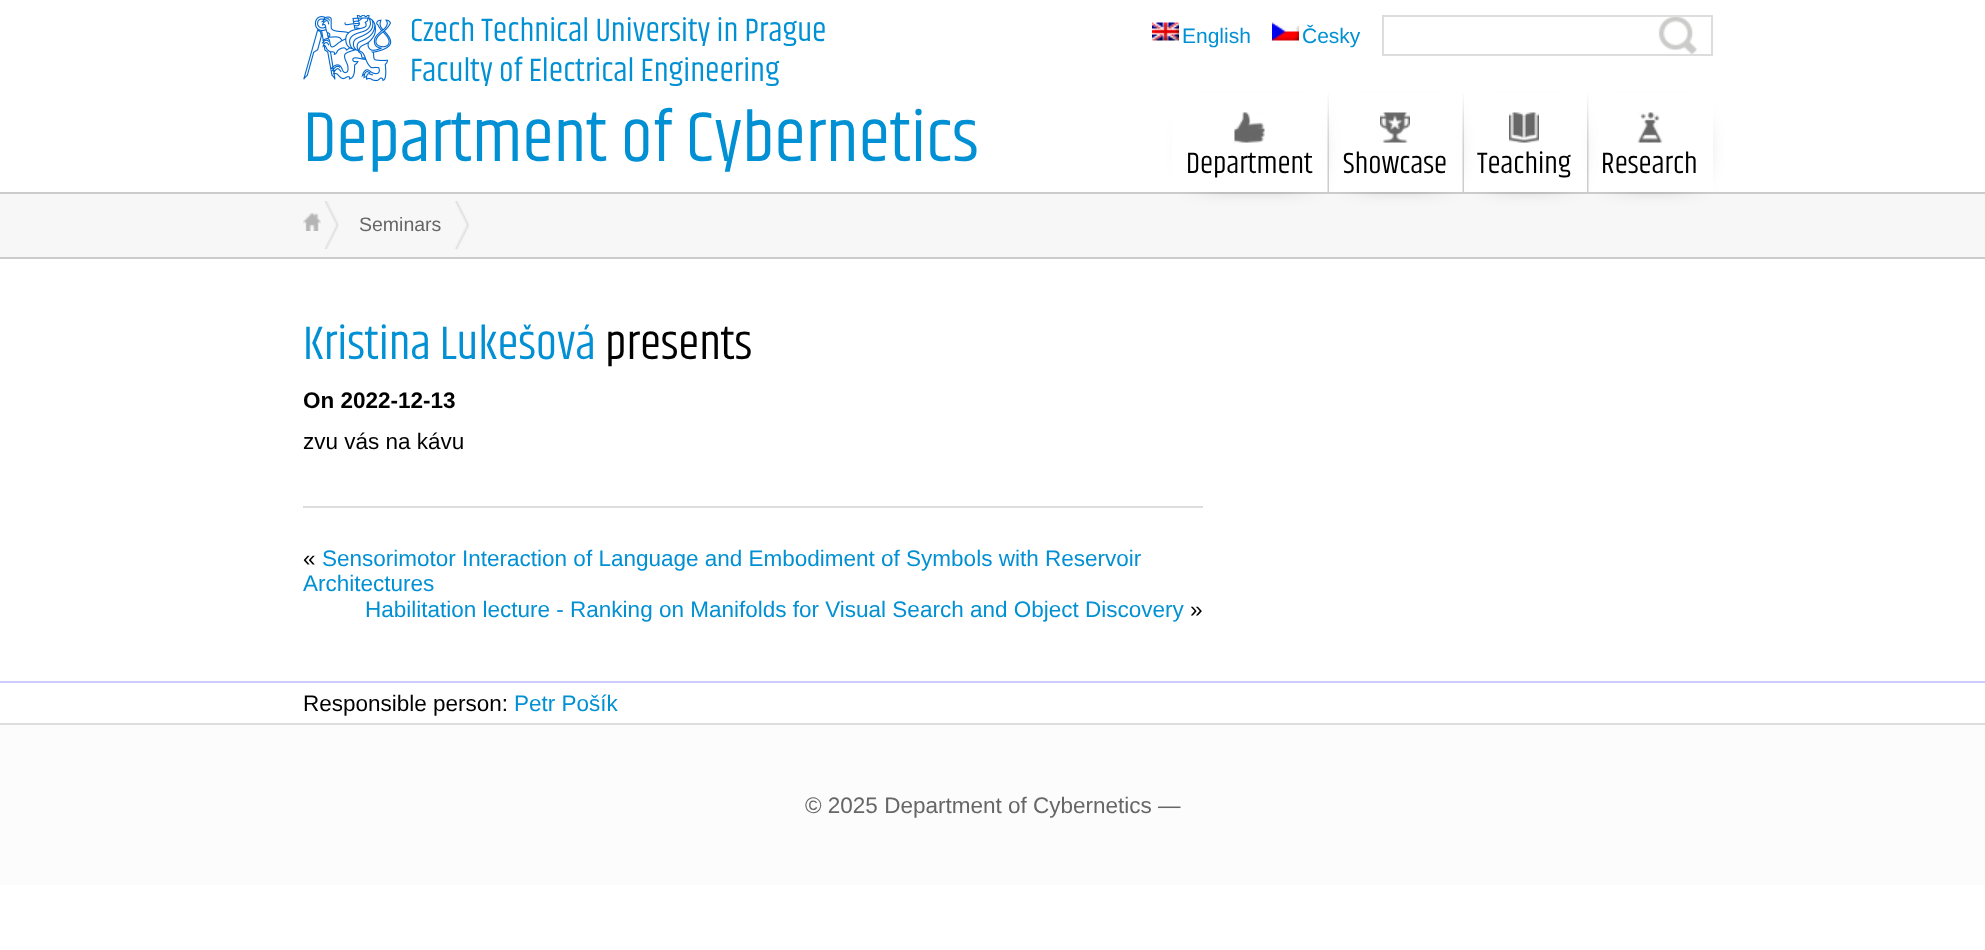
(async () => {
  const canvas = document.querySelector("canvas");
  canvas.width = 1985;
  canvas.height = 950;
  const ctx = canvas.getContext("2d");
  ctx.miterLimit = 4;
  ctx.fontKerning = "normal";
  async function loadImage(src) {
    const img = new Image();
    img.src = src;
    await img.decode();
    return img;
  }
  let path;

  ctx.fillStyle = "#ffffff";
  ctx.fillRect(0, 0, 1985, 950);
  ctx.drawImage(await loadImage("img/1.png"), 303, 15, 89, 66);
  ctx.drawImage(await loadImage("img/2.png"), 1152, 22, 27, 19);
  ctx.drawImage(await loadImage("img/3.png"), 1272, 22, 27, 19);
  ctx.drawImage(await loadImage("img/4.png"), 1658, 17, 39, 37);
  ctx.strokeStyle = "#dddddd";
  ctx.lineWidth = 2;
  ctx.strokeRect(1383, 16, 329, 39);
  ctx.fillStyle = "#f7f7f7";
  ctx.fillRect(0, 194, 1985, 63);
  ctx.fillStyle = "#cccccc";
  ctx.fillRect(0, 192, 1985, 2);
  ctx.save();
  path = new Path2D("M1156 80H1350V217H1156ZM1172 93H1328V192H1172Z");
  ctx.clip(path, "evenodd");
  ctx.fillStyle = "#000000";
  ctx.filter = "blur(15px)";
  ctx.beginPath();
  ctx.rect(1202, 126, 102, 45);
  ctx.fill();
  ctx.filter = "none";
  ctx.restore();
  ctx.drawImage(await loadImage("img/5.png"), 1234, 112, 31, 31);
  ctx.save();
  path = new Path2D("M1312 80H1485V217H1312ZM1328 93H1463V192H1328Z");
  ctx.clip(path, "evenodd");
  ctx.fillStyle = "#000000";
  ctx.filter = "blur(15px)";
  ctx.beginPath();
  ctx.rect(1358, 126, 81, 45);
  ctx.fill();
  ctx.filter = "none";
  ctx.restore();
  ctx.drawImage(await loadImage("img/6.png"), 1327, 93, 2, 99);
  ctx.drawImage(await loadImage("img/7.png"), 1380, 112, 30, 31);
  ctx.save();
  path = new Path2D("M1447 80H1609V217H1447ZM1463 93H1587V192H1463Z");
  ctx.clip(path, "evenodd");
  ctx.fillStyle = "#000000";
  ctx.filter = "blur(15px)";
  ctx.beginPath();
  ctx.rect(1493, 126, 70, 45);
  ctx.fill();
  ctx.filter = "none";
  ctx.restore();
  ctx.drawImage(await loadImage("img/6.png"), 1462, 93, 2, 99);
  ctx.drawImage(await loadImage("img/8.png"), 1509, 112, 30, 31);
  ctx.save();
  path = new Path2D("M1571 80H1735V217H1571ZM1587 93H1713V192H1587Z");
  ctx.clip(path, "evenodd");
  ctx.fillStyle = "#000000";
  ctx.filter = "blur(15px)";
  ctx.beginPath();
  ctx.rect(1617, 126, 72, 45);
  ctx.fill();
  ctx.filter = "none";
  ctx.restore();
  ctx.drawImage(await loadImage("img/9.png"), 1587, 93, 2, 99);
  ctx.drawImage(await loadImage("img/10.png"), 1637, 112, 26, 31);
  ctx.fillRect(0, 257, 1985, 2);
  ctx.drawImage(await loadImage("img/11.png"), 303, 213, 18, 18);
  ctx.drawImage(await loadImage("img/12.png"), 324, 201, 15, 48);
  ctx.drawImage(await loadImage("img/13.png"), 454, 201, 16, 48);
  for (const [x, y, w, h, color] of [
    [303, 506, 900, 2, "#dddddd"],
    [0, 681, 1985, 2, "#ccccff"],
    [0, 725, 1985, 160, "#fcfcfc"],
    [0, 723, 1985, 2, "#dddddd"],
  ]) {
    ctx.fillStyle = color;
    ctx.fillRect(x, y, w, h);
  }
  ctx.font = "33px Khand";
  ctx.fillStyle = "#0090d3";
  ctx.fillText("Czech Technical University in Prague", 410, 41);
  ctx.fillText("Faculty of Electrical Engineering", 410, 81);
  ctx.font = "72px Khand";
  ctx.fillText("Department of Cybernetics", 303, 161);
  ctx.font = "21px Liberation Sans";
  ctx.fillText("English", 1182, 43);
  ctx.fillText("Česky", 1302, 43);
  ctx.font = "30px Khand";
  ctx.fillStyle = "#000000";
  for (const [text, x, y] of [
    ["Department", 1186, 173],
    ["Showcase", 1343, 173],
    ["Teaching", 1477, 173],
    ["Research", 1601, 173],
  ]) {
    ctx.fillText(text, x, y);
  }
  ctx.font = "19.5px Liberation Sans";
  ctx.fillStyle = "#666666";
  ctx.fillText("Seminars", 359, 231);
  ctx.font = "48px Khand";
  ctx.fillStyle = "#0090d3";
  ctx.fillText("Kristina Lukešová", 303, 359);
  ctx.fillStyle = "#000000";
  ctx.fillText("presents", 605, 359);
  ctx.font = "bold 22.5px Liberation Sans";
  ctx.fillText("On 2022-12-13", 303, 408);
  ctx.font = "22.5px Liberation Sans";
  ctx.fillText("zvu vás na kávu", 303, 449);
  ctx.fillText("«", 303, 566);
  ctx.fillStyle = "#0090d3";
  for (const [text, x, y] of [
    ["Sensorimotor Interaction of Language and Embodiment of Symbols with Reservoir", 322, 566],
    ["Architectures", 303, 591],
    ["Habilitation lecture - Ranking on Manifolds for Visual Search and Object Discovery", 365, 617],
  ]) {
    ctx.fillText(text, x, y);
  }
  ctx.fillStyle = "#000000";
  ctx.fillText("»", 1190, 617);
  ctx.fillText("Responsible person:", 303, 711);
  ctx.fillStyle = "#0090d3";
  ctx.fillText("Petr Pošík", 514, 711);
  ctx.fillStyle = "#666666";
  ctx.fillText("© 2025 Department of Cybernetics —", 805, 813);
})();
